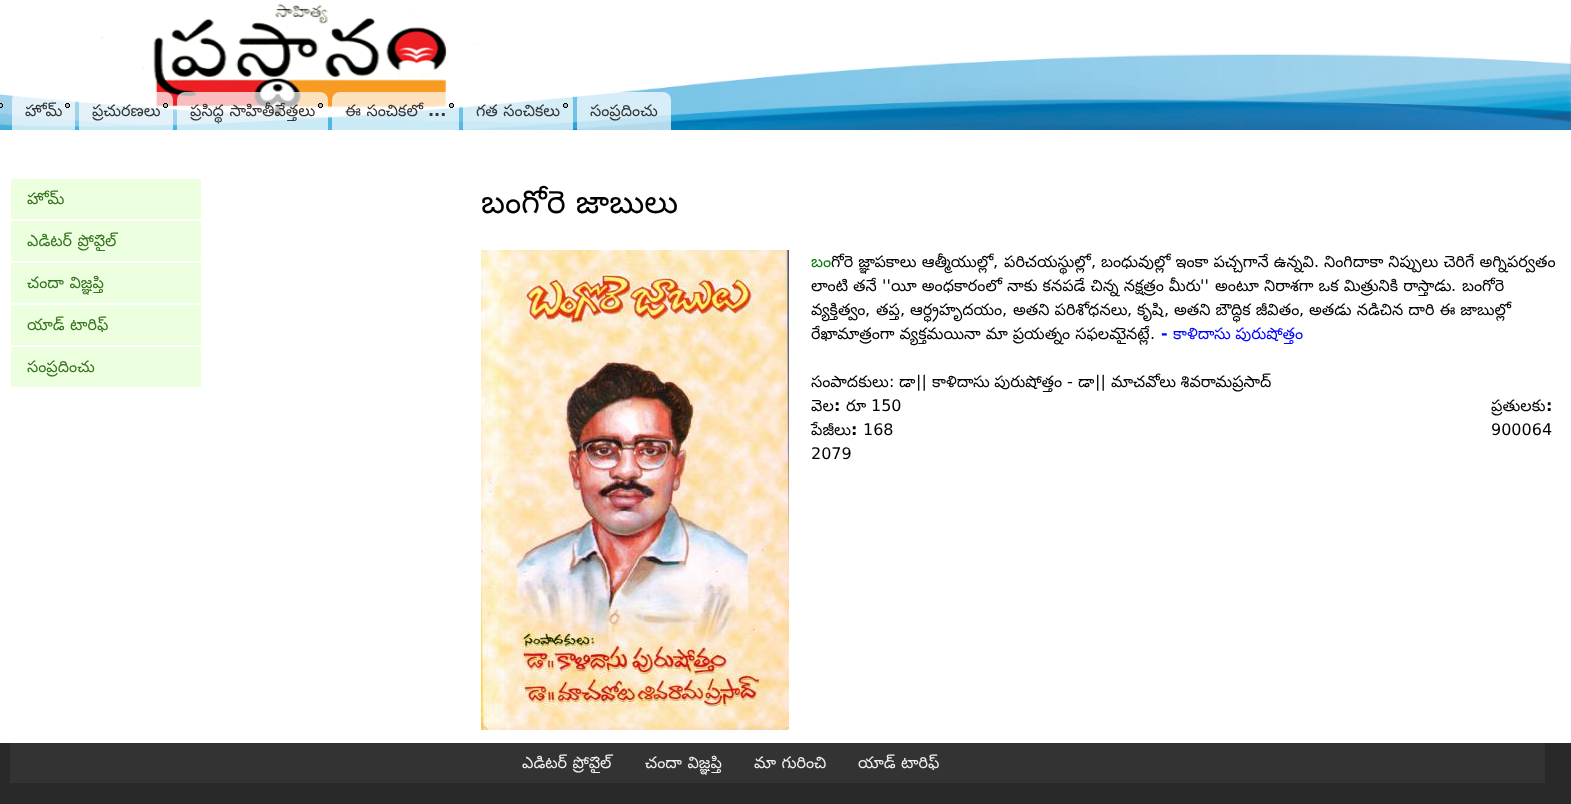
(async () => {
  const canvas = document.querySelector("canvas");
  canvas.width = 1571;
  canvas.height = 804;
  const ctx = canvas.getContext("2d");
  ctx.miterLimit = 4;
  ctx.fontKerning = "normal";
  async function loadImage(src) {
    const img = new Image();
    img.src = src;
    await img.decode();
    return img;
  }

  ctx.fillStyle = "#ffffff";
  ctx.fillRect(0, 0, 1571, 804);
  ctx.drawImage(await loadImage("img/1.png"), 0, 3, 1571, 127);
  ctx.drawImage(await loadImage("img/2.png"), 0, 103, 3, 5);
  ctx.fillStyle = "rgba(255, 255, 255, 0.7)";
  ctx.beginPath();
  ctx.roundRect(12, 92, 63, 38, [8, 8, 0, 0]);
  ctx.fill();
  ctx.drawImage(await loadImage("img/3.png"), 65, 103, 5, 5);
  ctx.beginPath();
  ctx.roundRect(79, 92, 94, 38, [8, 8, 0, 0]);
  ctx.fill();
  ctx.drawImage(await loadImage("img/4.png"), 163, 103, 5, 5);
  ctx.beginPath();
  ctx.roundRect(177, 92, 151, 38, [8, 8, 0, 0]);
  ctx.fill();
  ctx.drawImage(await loadImage("img/5.png"), 318, 103, 5, 5);
  ctx.beginPath();
  ctx.roundRect(332, 92, 127, 38, [8, 8, 0, 0]);
  ctx.fill();
  ctx.drawImage(await loadImage("img/6.png"), 449, 103, 5, 5);
  ctx.beginPath();
  ctx.roundRect(463, 92, 110, 38, [8, 8, 0, 0]);
  ctx.fill();
  ctx.drawImage(await loadImage("img/7.png"), 563, 103, 5, 5);
  ctx.beginPath();
  ctx.roundRect(577, 92, 94, 38, [8, 8, 0, 0]);
  ctx.fill();
  for (const [x, y, w, h, color] of [
    [11, 179, 190, 40, "#ecffdf"],
    [11, 221, 190, 40, "#ecffdf"],
    [11, 263, 190, 40, "#ecffdf"],
    [11, 305, 190, 40, "#ecffdf"],
    [11, 347, 190, 40, "#ecffdf"],
  ]) {
    ctx.fillStyle = color;
    ctx.fillRect(x, y, w, h);
  }
  ctx.drawImage(await loadImage("img/8.png"), 481, 250, 308, 480);
  ctx.fillStyle = "#292929";
  ctx.fillRect(0, 743, 1571, 61);
  ctx.fillStyle = "#333333";
  ctx.fillRect(10, 743, 1535, 40);
  ctx.font = "16px Noto Sans Telugu";
  ctx.fillText("హోమ్", 25, 116);
  ctx.fillText("ప్రచురణలు", 92, 116);
  ctx.wordSpacing = "1px";
  ctx.fillText("ప్రసిద్థ సాహితీవేత్తలు", 190, 116);
  ctx.fillText("ఈ సంచికలో", 345, 116);
  ctx.wordSpacing = "0px";
  ctx.font = "bold 16px DejaVu Sans";
  ctx.fillText("...", 428, 116);
  ctx.wordSpacing = "1px";
  ctx.font = "16px Noto Sans Telugu";
  ctx.fillText("గత సంచికలు", 476, 116);
  ctx.wordSpacing = "0px";
  ctx.fillText("సంప్రదించు", 590, 116);
  ctx.fillStyle = "#37731f";
  ctx.fillText("హోమ్", 27, 204);
  ctx.wordSpacing = "1px";
  for (const [text, x, y] of [
    ["ఎడిటర్ ప్రోపైల్", 27, 246],
    ["చందా విజ్ఞప్తి", 27, 288],
    ["యాడ్ టారిఫ్", 27, 330],
  ]) {
    ctx.fillText(text, x, y);
  }
  ctx.wordSpacing = "0px";
  ctx.fillText("సంప్రదించు", 27, 372);
  ctx.wordSpacing = "1px";
  ctx.font = "32px Noto Sans Telugu";
  ctx.fillStyle = "#000000";
  ctx.fillText("బంగోరె జాబులు", 481, 213);
  ctx.wordSpacing = "0px";
  ctx.font = "16px Noto Sans Telugu";
  ctx.fillStyle = "#008000";
  ctx.fillText("బం", 811, 267);
  ctx.wordSpacing = "0.5px";
  ctx.fillStyle = "#000000";
  ctx.fillText("గోరె జ్ఞాపకాలు ఆత్మీయుల్లో", 831, 267);
  ctx.wordSpacing = "0px";
  ctx.font = "16px DejaVu Sans";
  ctx.fillText(",", 993, 267);
  ctx.font = "16px Noto Sans Telugu";
  ctx.fillText("పరిచయస్థుల్లో", 1004, 267);
  ctx.font = "16px DejaVu Sans";
  ctx.fillText(",", 1091, 267);
  ctx.wordSpacing = "0.5px";
  ctx.font = "16px Noto Sans Telugu";
  ctx.fillText("బంధువుల్లో ఇంకా పచ్చగానే ఉన్నవి", 1101, 267);
  ctx.wordSpacing = "0px";
  ctx.font = "16px DejaVu Sans";
  ctx.fillText(".", 1314, 267);
  ctx.wordSpacing = "0.5px";
  ctx.font = "16px Noto Sans Telugu";
  ctx.fillText("నింగిదాకా నిప్పులు చెరిగే అగ్నిపర్వతం", 1324, 267);
  ctx.fillText("లాంటి తనే", 811, 291);
  ctx.wordSpacing = "0px";
  ctx.font = "16px DejaVu Sans";
  ctx.fillText("''", 882, 291);
  ctx.wordSpacing = "0.5px";
  ctx.font = "16px Noto Sans Telugu";
  ctx.fillText("యీ అంధకారంలో నాకు కనపడే చిన్న నక్షత్రం మీరు", 891, 291);
  ctx.wordSpacing = "0px";
  ctx.font = "16px DejaVu Sans";
  ctx.fillText("''", 1200, 291);
  ctx.wordSpacing = "0.5px";
  ctx.font = "16px Noto Sans Telugu";
  ctx.fillText("అంటూ నిరాశగా ఒక మిత్రునికి రాస్తాడు", 1215, 291);
  ctx.wordSpacing = "0px";
  ctx.fillText("బంగోరె", 1462, 291);
  ctx.font = "16px DejaVu Sans";
  ctx.fillText(".", 1451, 291);
  ctx.font = "16px Noto Sans Telugu";
  ctx.fillText("వ్యక్తిత్వం", 811, 315);
  ctx.font = "16px DejaVu Sans";
  ctx.fillText(",", 865, 315);
  ctx.font = "16px Noto Sans Telugu";
  ctx.fillText("తప్త", 876, 315);
  ctx.font = "16px DejaVu Sans";
  ctx.fillText(",", 900, 315);
  ctx.font = "16px Noto Sans Telugu";
  ctx.fillText("ఆర్ధ్రహృదయం", 910, 315);
  ctx.font = "16px DejaVu Sans";
  ctx.fillText(",", 1002, 315);
  ctx.wordSpacing = "0.5px";
  ctx.font = "16px Noto Sans Telugu";
  ctx.fillText("అతని పరిశోధనలు", 1013, 315);
  ctx.wordSpacing = "0px";
  ctx.font = "16px DejaVu Sans";
  ctx.fillText(",", 1127, 315);
  ctx.font = "16px Noto Sans Telugu";
  ctx.fillText("కృషి", 1137, 315);
  ctx.font = "16px DejaVu Sans";
  ctx.fillText(",", 1164, 315);
  ctx.wordSpacing = "0.5px";
  ctx.font = "16px Noto Sans Telugu";
  ctx.fillText("అతని బౌద్ధిక జీవితం", 1174, 315);
  ctx.wordSpacing = "0px";
  ctx.font = "16px DejaVu Sans";
  ctx.fillText(",", 1299, 315);
  ctx.wordSpacing = "0.5px";
  ctx.font = "16px Noto Sans Telugu";
  ctx.fillText("అతడు నడిచిన దారి ఈ జాబుల్లో", 1309, 315);
  ctx.fillText("రేఖామాత్రంగా వ్యక్తమయినా మా ప్రయత్నం సఫలమైనట్లే", 811, 339);
  ctx.wordSpacing = "0px";
  ctx.font = "bold 16px DejaVu Sans";
  ctx.fillStyle = "#0000ff";
  ctx.fillText("-", 1161, 339);
  ctx.font = "16px Noto Sans Telugu";
  ctx.fillText("కాళిదాసు పురుషోత్తం", 1173, 339);
  ctx.font = "16px DejaVu Sans";
  ctx.fillStyle = "#000000";
  ctx.fillText(".", 1150, 339);
  ctx.font = "16px Noto Sans Telugu";
  ctx.fillText("సంపాదకులు", 811, 387);
  ctx.font = "16px DejaVu Sans";
  ctx.fillText(":", 889, 387);
  ctx.font = "16px Noto Sans Telugu";
  ctx.fillText("డా", 899, 387);
  ctx.font = "16px DejaVu Sans";
  ctx.fillText("||", 916, 387);
  ctx.font = "16px Noto Sans Telugu";
  ctx.fillText("కాళిదాసు పురుషోత్తం", 932, 387);
  ctx.font = "16px DejaVu Sans";
  ctx.fillText("-", 1067, 387);
  ctx.font = "16px Noto Sans Telugu";
  ctx.fillText("డా", 1078, 387);
  ctx.font = "16px DejaVu Sans";
  ctx.fillText("||", 1095, 387);
  ctx.font = "16px Noto Sans Telugu";
  ctx.fillText("మాచవోలు శివరామప్రసాద్", 1111, 387);
  ctx.fillText("వెల", 811, 411);
  ctx.font = "bold 16px DejaVu Sans";
  ctx.fillText(":", 834, 411);
  ctx.font = "16px Noto Sans Telugu";
  ctx.fillText("రూ", 846, 411);
  ctx.font = "16px DejaVu Sans";
  ctx.fillText("150", 871, 411);
  ctx.font = "16px Noto Sans Telugu";
  ctx.fillText("ప్రతులకు", 1491, 411);
  ctx.font = "bold 16px DejaVu Sans";
  ctx.fillText(":", 1546, 411);
  ctx.font = "16px DejaVu Sans";
  ctx.fillText("900064", 1491, 435);
  ctx.fillText("2079", 811, 459);
  ctx.font = "16px Noto Sans Telugu";
  ctx.fillText("పేజీలు", 811, 435);
  ctx.font = "bold 16px DejaVu Sans";
  ctx.fillText(":", 851, 435);
  ctx.font = "16px DejaVu Sans";
  ctx.fillText("168", 863, 435);
  ctx.wordSpacing = "1px";
  ctx.font = "16px Noto Sans Telugu";
  ctx.fillStyle = "#f1f1f1";
  for (const [text, x, y] of [
    ["ఎడిటర్ ప్రోపైల్", 522, 768],
    ["చందా విజ్ఞప్తి", 645, 768],
    ["మా గురించి", 754, 768],
    ["యాడ్ టారిఫ్", 858, 768],
  ]) {
    ctx.fillText(text, x, y);
  }
})();
